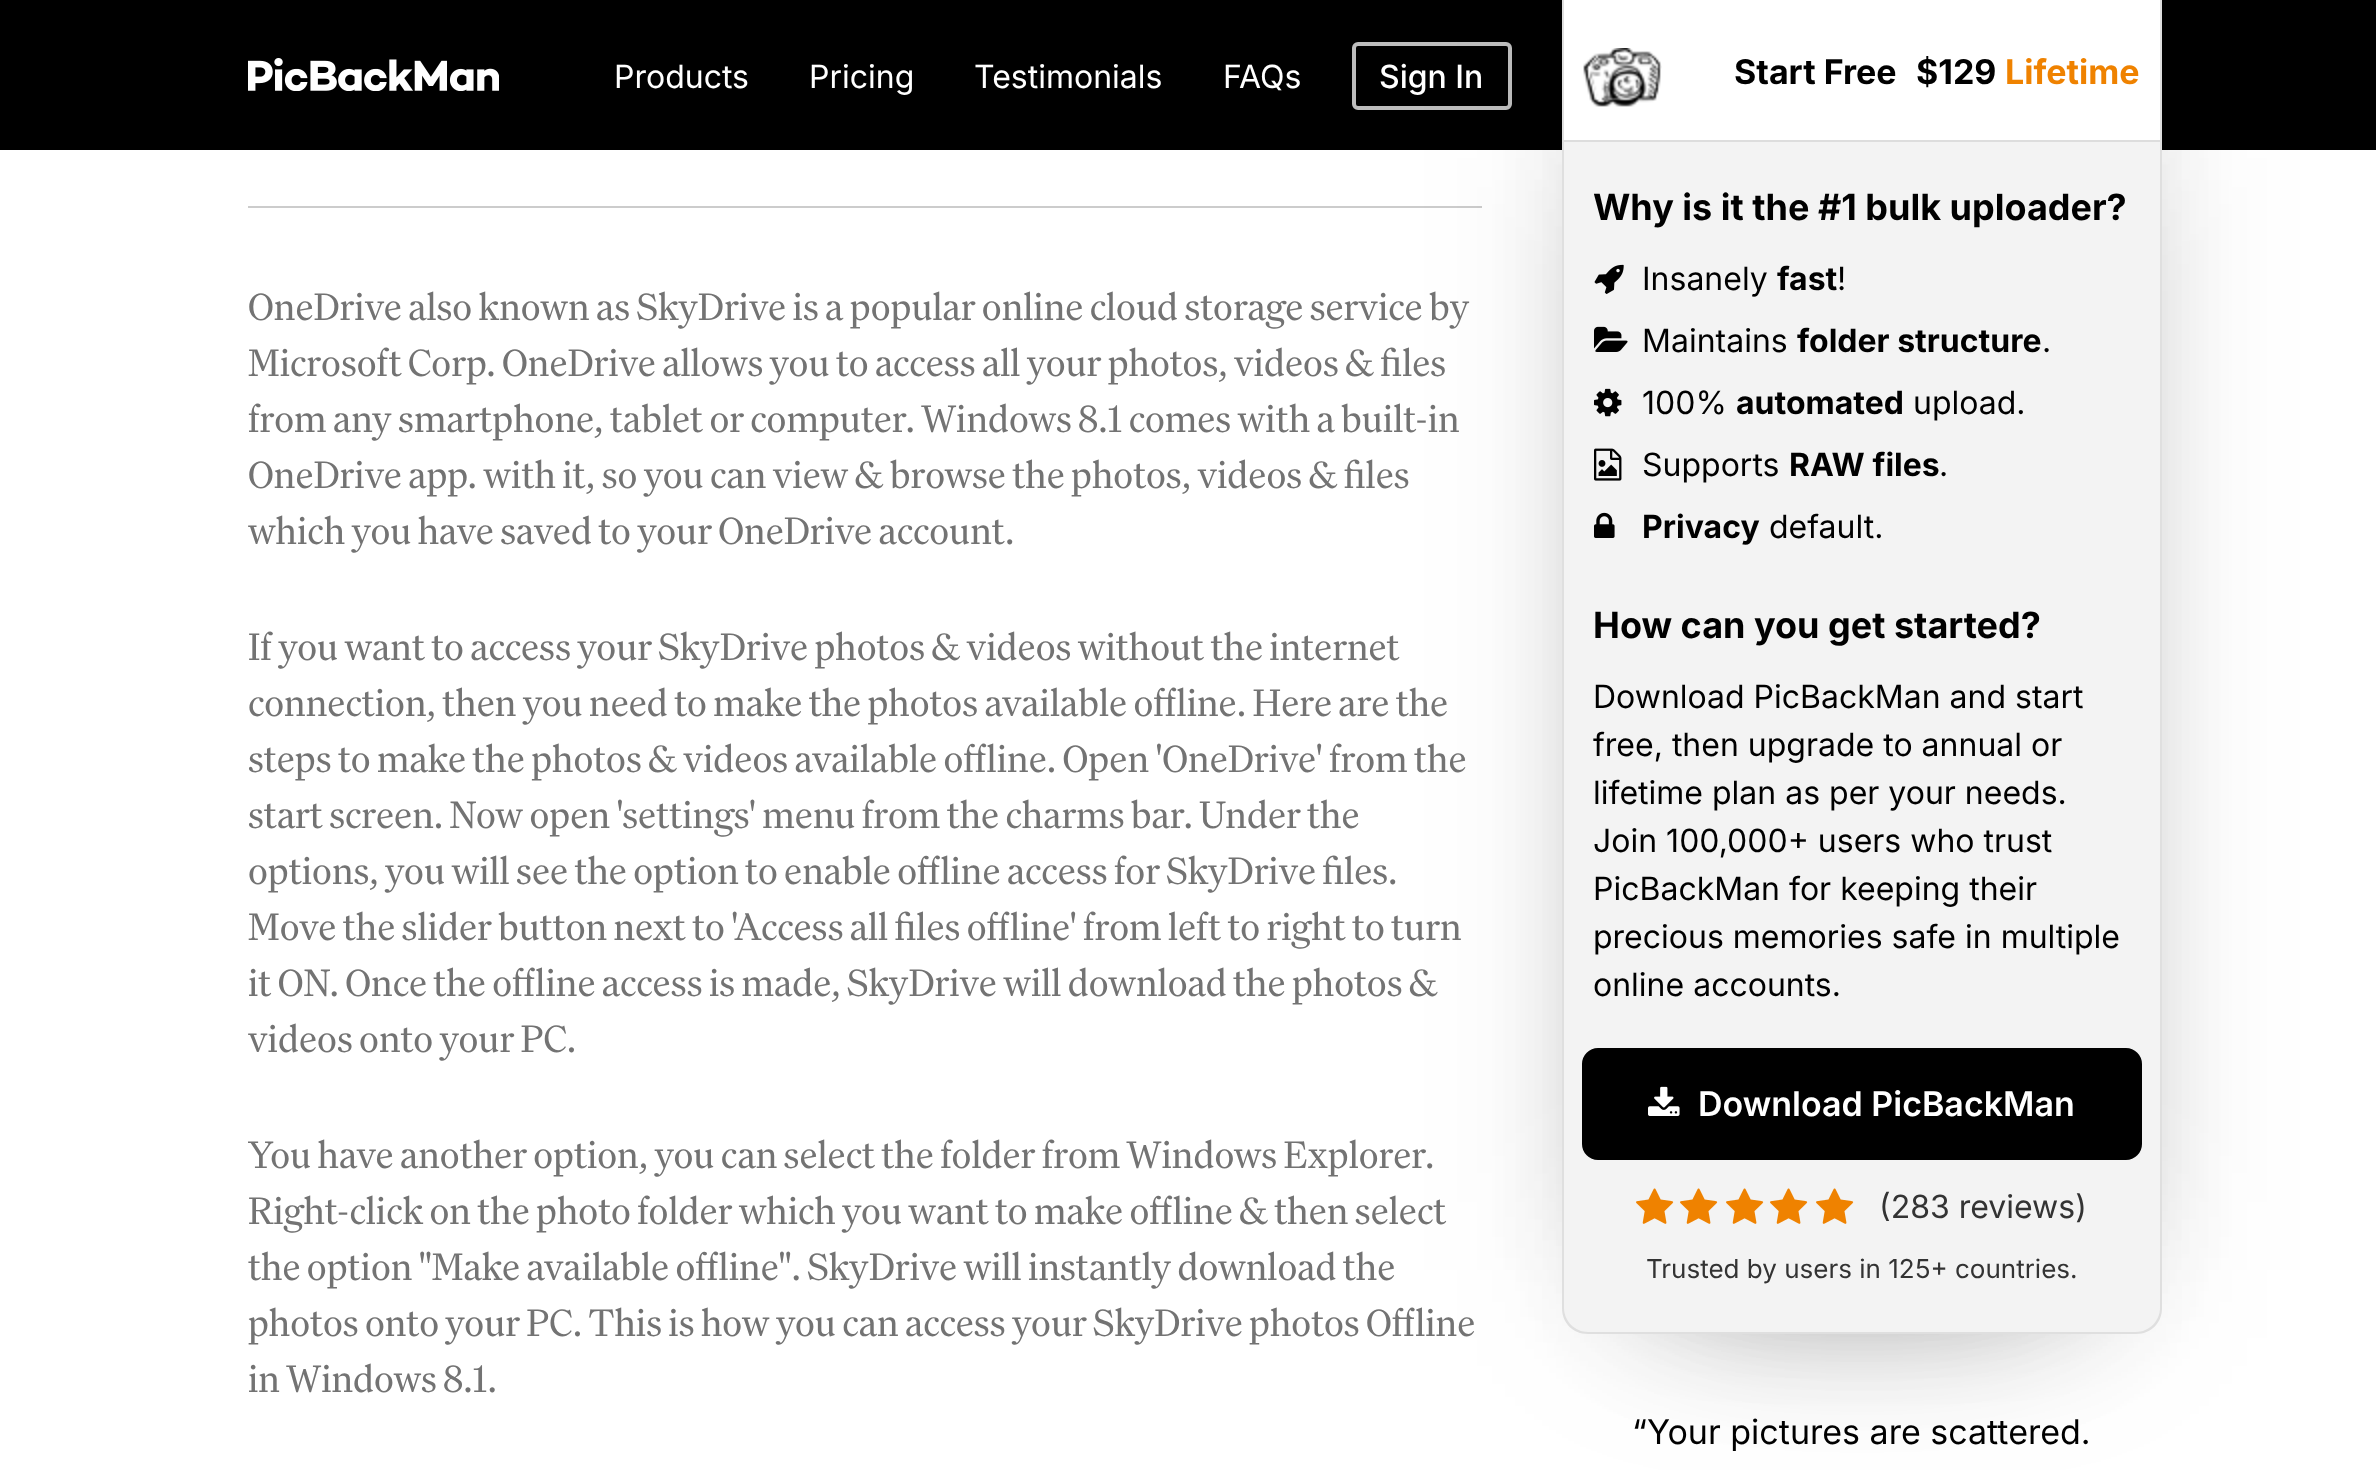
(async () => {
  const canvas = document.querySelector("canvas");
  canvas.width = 2376;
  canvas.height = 1470;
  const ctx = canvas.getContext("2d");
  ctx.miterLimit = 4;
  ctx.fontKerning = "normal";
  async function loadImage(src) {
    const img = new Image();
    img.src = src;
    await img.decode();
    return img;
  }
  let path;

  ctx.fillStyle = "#ffffff";
  ctx.fillRect(0, 0, 2376, 1470);
  ctx.fillStyle = "#000000";
  ctx.fillRect(0, 0, 2376, 150);
  ctx.drawImage(await loadImage("img/1.png"), 248, 58, 251, 33);
  ctx.beginPath();
  ctx.roundRect(1354, 44, 156, 64, 4);
  ctx.strokeStyle = "#bdbdbd";
  ctx.lineWidth = 4;
  ctx.stroke();
  ctx.fillStyle = "#cccccc";
  ctx.fillRect(248, 206, 1234, 2);
  ctx.fillStyle = "rgba(0, 0, 0, 0.3)";
  ctx.filter = "blur(89.5px)";
  ctx.beginPath();
  ctx.rect(1690, 180, 344, 1078);
  ctx.fill();
  ctx.filter = "none";
  ctx.fillStyle = "rgba(0, 0, 0, 0.2)";
  ctx.filter = "blur(77px)";
  ctx.beginPath();
  ctx.rect(1664, 140, 396, 1130);
  ctx.fill();
  ctx.filter = "none";
  ctx.fillStyle = "rgba(0, 0, 0, 0.1)";
  ctx.filter = "blur(64px)";
  ctx.beginPath();
  ctx.rect(1638, 102, 448, 1180);
  ctx.fill();
  ctx.filter = "none";
  ctx.fillStyle = "rgba(0, 0, 0, 0.2)";
  ctx.filter = "blur(102.5px)";
  ctx.beginPath();
  ctx.rect(1638, 90, 448, 1180);
  ctx.fill();
  ctx.filter = "none";
  ctx.fillStyle = "#f3f3f3";
  ctx.beginPath();
  ctx.roundRect(1562, 0, 600, 1334, [0, 0, 26, 26]);
  ctx.fill();
  ctx.fillStyle = "#dfdfdf";
  path = new Path2D("M1562 0H2162V1308C2162 1323 2151 1334 2136 1334H1588C1573 1334 1562 1323 1562 1308ZM1564 0H2160V1308C2160 1321 2149 1332 2136 1332H1588C1575 1332 1564 1321 1564 1308Z");
  ctx.fill(path, "evenodd");
  ctx.fillStyle = "#ffffff";
  ctx.fillRect(1564, 0, 596, 140);
  ctx.fillStyle = "#dddddd";
  ctx.fillRect(1564, 140, 596, 2);
  ctx.drawImage(await loadImage("img/2.png"), 1583, 48, 79, 59);
  ctx.drawImage(await loadImage("img/3.png"), 1594, 264, 30, 30);
  ctx.drawImage(await loadImage("img/4.png"), 1594, 326, 34, 26);
  ctx.drawImage(await loadImage("img/5.png"), 1594, 388, 28, 29);
  ctx.drawImage(await loadImage("img/6.png"), 1594, 448, 28, 33);
  ctx.drawImage(await loadImage("img/7.png"), 1594, 512, 21, 26);
  ctx.fillStyle = "#000000";
  ctx.beginPath();
  ctx.roundRect(1583, 1049, 558, 110, 15);
  ctx.fill();
  ctx.strokeStyle = "#000000";
  ctx.lineWidth = 2;
  ctx.stroke();
  ctx.drawImage(await loadImage("img/8.png"), 1648, 1086, 32, 30);
  ctx.drawImage(await loadImage("img/9.png"), 1636, 1188, 38, 36);
  ctx.drawImage(await loadImage("img/9.png"), 1680, 1188, 38, 36);
  ctx.drawImage(await loadImage("img/9.png"), 1726, 1188, 38, 36);
  ctx.drawImage(await loadImage("img/9.png"), 1770, 1188, 38, 36);
  ctx.drawImage(await loadImage("img/9.png"), 1816, 1188, 38, 36);
  ctx.font = "32px Inter";
  ctx.fillStyle = "#ffffff";
  for (const [text, x, y] of [
    ["Products", 614, 88],
    ["Pricing", 809, 88],
    ["Testimonials", 974, 88],
    ["FAQs", 1223, 88],
  ]) {
    ctx.fillText(text, x, y);
  }
  ctx.font = "500 32px Inter";
  ctx.fillText("Sign In", 1379, 88);
  ctx.font = "bold 34px Inter";
  ctx.fillStyle = "#000000";
  ctx.fillText("Start Free", 1734, 84);
  ctx.fillText("$129", 1916, 84);
  ctx.fillStyle = "#ef8200";
  ctx.fillText("Lifetime", 2005, 84);
  ctx.font = "bold 36px Inter";
  ctx.fillStyle = "#000000";
  ctx.fillText("Why is it the #1 bulk uploader?", 1593, 220);
  ctx.font = "32px Inter";
  ctx.fillText("Insanely", 1642, 290);
  ctx.font = "bold 32px Inter";
  ctx.fillText("fast", 1777, 290);
  ctx.font = "32px Inter";
  ctx.fillText("!", 1837, 290);
  ctx.fillText("Maintains", 1642, 352);
  ctx.font = "bold 32px Inter";
  ctx.fillText("folder structure", 1797, 352);
  ctx.font = "32px Inter";
  ctx.fillText(".", 2042, 352);
  ctx.fillText("100%", 1642, 414);
  ctx.font = "bold 32px Inter";
  ctx.fillText("automated", 1736, 414);
  ctx.font = "32px Inter";
  ctx.fillText("upload.", 1913, 414);
  ctx.fillText("Supports", 1642, 476);
  ctx.font = "bold 32px Inter";
  ctx.fillText("RAW files", 1789, 476);
  ctx.font = "32px Inter";
  ctx.fillText(".", 1939, 476);
  ctx.font = "bold 32px Inter";
  ctx.fillText("Privacy", 1642, 538);
  ctx.font = "32px Inter";
  ctx.fillText("default.", 1769, 538);
  ctx.font = "bold 36px Inter";
  ctx.fillText("How can you get started?", 1593, 638);
  ctx.font = "32px Inter";
  for (const [text, x, y] of [
    ["Download PicBackMan and start", 1593, 708],
    ["free, then upgrade to annual or", 1593, 756],
    ["lifetime plan as per your needs.", 1593, 804],
    ["Join 100,000+ users who trust", 1593, 852],
    ["PicBackMan for keeping their", 1593, 900],
    ["precious memories safe in multiple", 1593, 948],
    ["online accounts.", 1593, 996],
  ]) {
    ctx.fillText(text, x, y);
  }
  ctx.font = "600 34px Inter";
  ctx.fillStyle = "#ffffff";
  ctx.fillText("Download PicBackMan", 1698, 1116);
  ctx.font = "32px Inter";
  ctx.fillStyle = "#333333";
  ctx.fillText("(283 reviews)", 1879, 1218);
  ctx.font = "26px Inter";
  ctx.fillText("Trusted by users in 125+ countries.", 1646, 1278);
  ctx.font = "34px Inter";
  ctx.fillStyle = "#000000";
  ctx.fillText("“Your pictures are scattered.", 1632, 1444);
  ctx.font = "40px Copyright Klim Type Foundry";
  ctx.fillStyle = "#737373";
  for (const [text, x, y] of [
    ["OneDrive also known as SkyDrive is a popular online cloud storage service by", 248, 320],
    ["Microsoft Corp. OneDrive allows you to access all your photos, videos & files", 248, 376],
    ["from any smartphone, tablet or computer. Windows 8.1 comes with a built-in", 248, 432],
    ["OneDrive app. with it, so you can view & browse the photos, videos & files", 248, 488],
    ["which you have saved to your OneDrive account.", 248, 544],
    ["If you want to access your SkyDrive photos & videos without the internet", 248, 660],
    ["connection, then you need to make the photos available offline. Here are the", 248, 716],
    ["steps to make the photos & videos available offline. Open 'OneDrive' from the", 248, 772],
    ["start screen. Now open 'settings' menu from the charms bar. Under the", 248, 828],
    ["options, you will see the option to enable offline access for SkyDrive files.", 248, 884],
    ["Move the slider button next to 'Access all files offline' from left to right to turn", 248, 940],
    ["it ON. Once the offline access is made, SkyDrive will download the photos &", 248, 996],
    ["videos onto your PC.", 248, 1052],
    ["You have another option, you can select the folder from Windows Explorer.", 248, 1168],
    ["Right-click on the photo folder which you want to make offline & then select", 248, 1224],
    ["the option \"Make available offline\". SkyDrive will instantly download the", 248, 1280],
    ["photos onto your PC. This is how you can access your SkyDrive photos Offline", 248, 1336],
    ["in Windows 8.1.", 248, 1392],
  ]) {
    ctx.fillText(text, x, y);
  }
})();
